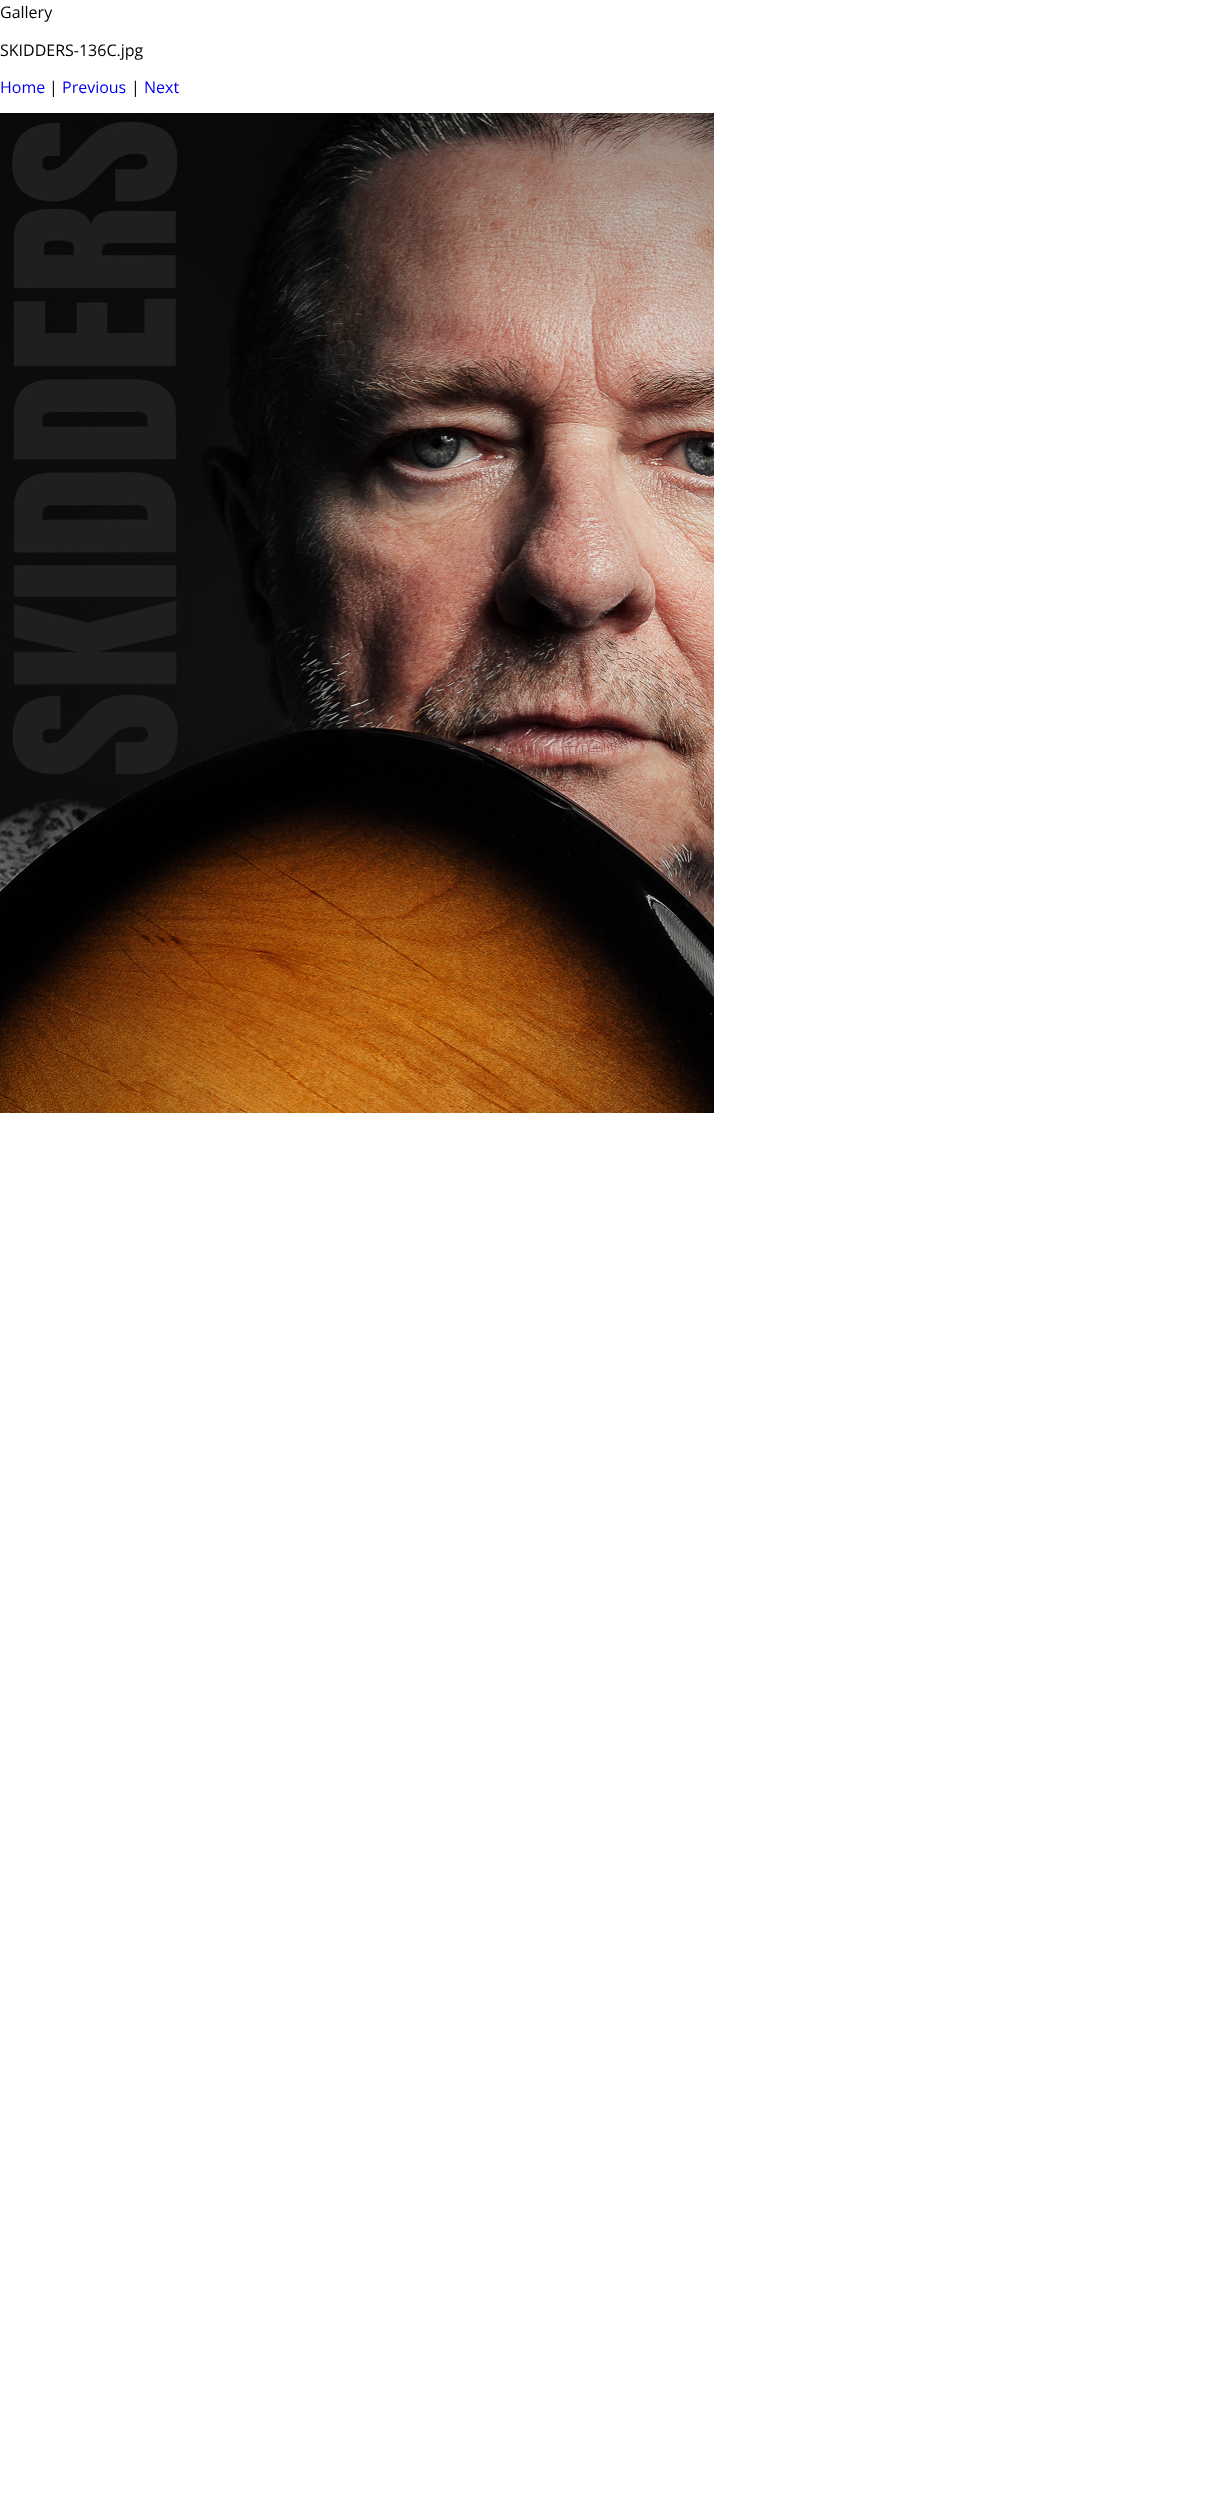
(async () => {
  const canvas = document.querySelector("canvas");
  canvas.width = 1218;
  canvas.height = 2513;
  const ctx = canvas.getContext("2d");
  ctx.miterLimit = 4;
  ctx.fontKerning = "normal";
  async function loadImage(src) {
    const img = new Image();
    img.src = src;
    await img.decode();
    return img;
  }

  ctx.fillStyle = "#ffffff";
  ctx.fillRect(0, 0, 1218, 2513);
  ctx.drawImage(await loadImage("img/1.png"), 0, 113, 714, 1000);
  ctx.font = "16px Open Sans";
  ctx.fillStyle = "#000000";
  ctx.fillText("Gallery", 0, 18);
  ctx.fillText("SKIDDERS-136C.jpg", 0, 56);
  ctx.fillStyle = "#0000ee";
  ctx.fillText("Home", 0, 93);
  ctx.fillStyle = "#000000";
  ctx.fillText("|", 49, 93);
  ctx.fillStyle = "#0000ee";
  ctx.fillText("Previous", 62, 93);
  ctx.fillStyle = "#000000";
  ctx.fillText("|", 131, 93);
  ctx.fillStyle = "#0000ee";
  ctx.fillText("Next", 144, 93);
})();
